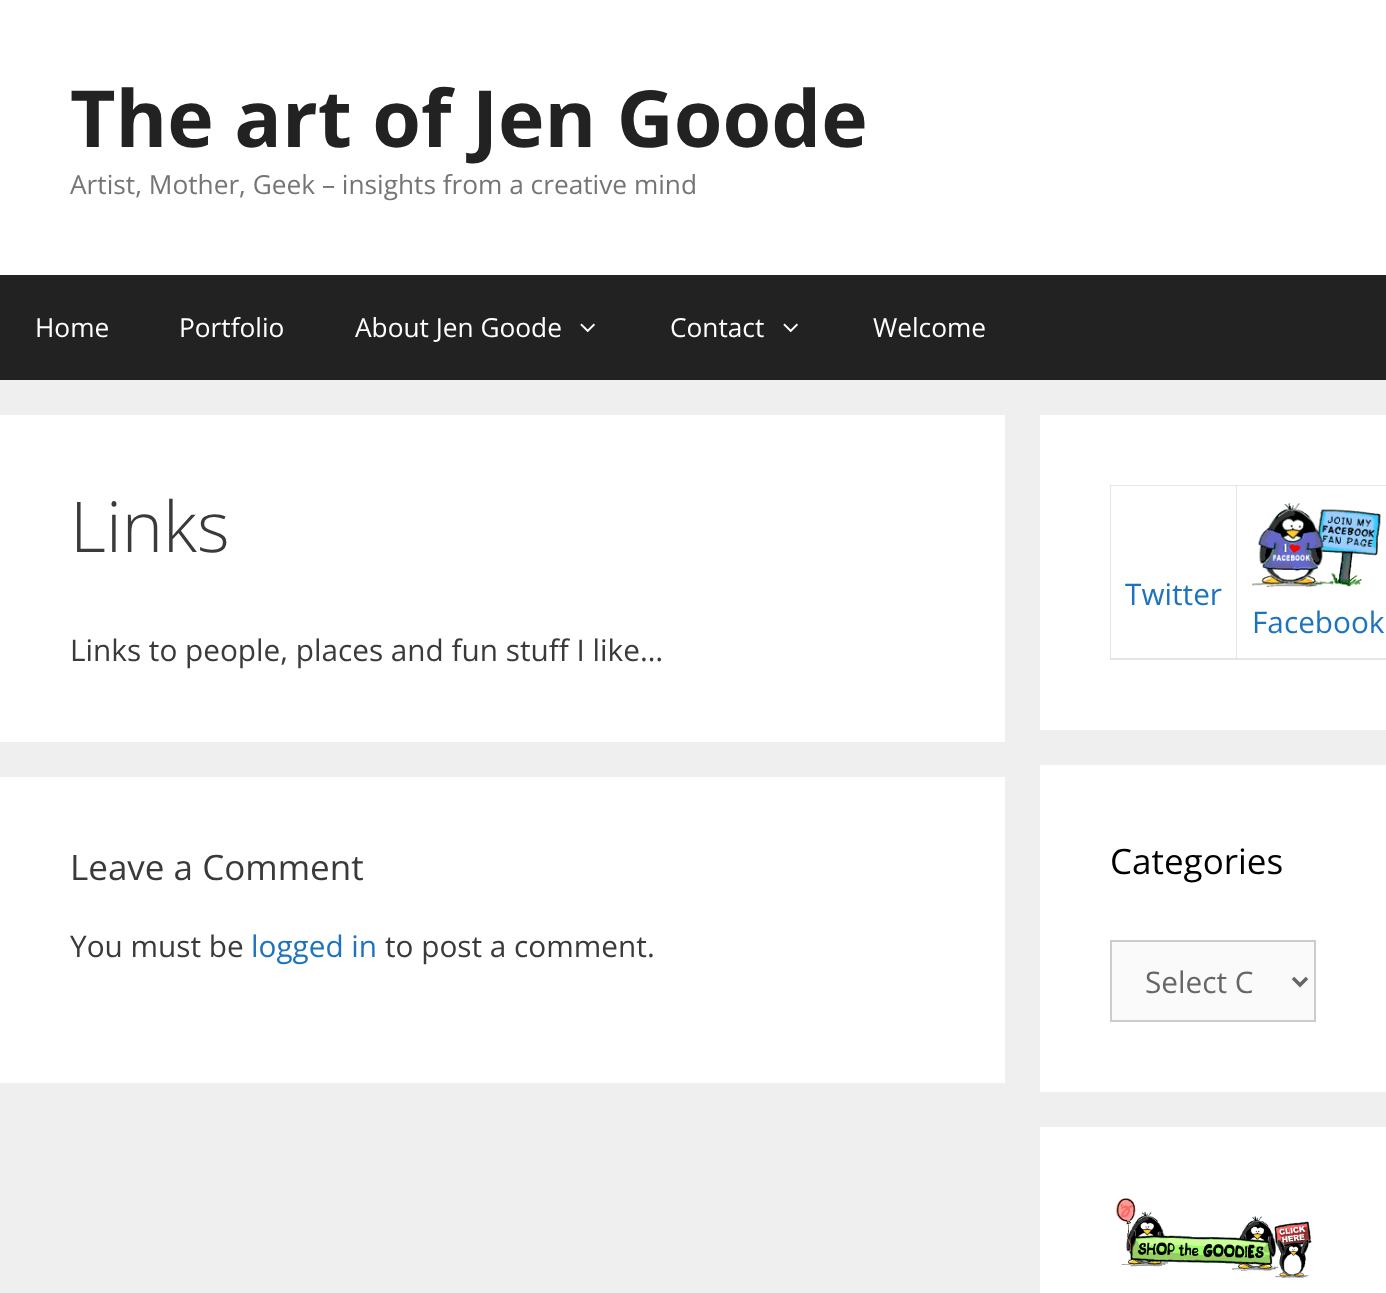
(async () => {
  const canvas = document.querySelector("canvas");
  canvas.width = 1386;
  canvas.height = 1293;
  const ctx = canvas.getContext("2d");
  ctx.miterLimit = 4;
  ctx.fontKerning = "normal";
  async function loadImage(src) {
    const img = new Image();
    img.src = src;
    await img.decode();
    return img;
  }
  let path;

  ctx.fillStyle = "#efefef";
  ctx.fillRect(0, 0, 1386, 1293);
  ctx.fillStyle = "#ffffff";
  ctx.fillRect(0, 0, 1386, 275);
  ctx.fillStyle = "#222222";
  ctx.fillRect(0, 275, 1386, 105);
  ctx.drawImage(await loadImage("img/1.png"), 580, 323, 15, 10);
  ctx.drawImage(await loadImage("img/1.png"), 783, 323, 15, 10);
  for (const [x, y, w, h, color] of [
    [0, 415, 1005, 327, "#ffffff"],
    [0, 777, 1005, 306, "#ffffff"],
    [1040, 415, 346, 315, "#ffffff"],
  ]) {
    ctx.fillStyle = color;
    ctx.fillRect(x, y, w, h);
  }
  ctx.fillStyle = "#e6e6e6";
  path = new Path2D("M1110 485H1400V486H1111Z");
  ctx.fill(path);
  ctx.fillStyle = "rgba(0, 0, 0, 0.1)";
  path = new Path2D("M1110 660V485L1111 486V660Z");
  ctx.fill(path);
  ctx.fillStyle = "#e6e6e6";
  path = new Path2D("M1237 486V660L1236 658V486Z");
  ctx.fill(path);
  ctx.fillStyle = "rgba(0, 0, 0, 0.1)";
  path = new Path2D("M1237 660H1111V658H1236Z");
  ctx.fill(path);
  ctx.fillStyle = "#e6e6e6";
  path = new Path2D("M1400 660H1237V658H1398Z");
  ctx.fill(path);
  ctx.drawImage(await loadImage("img/2.png"), 1252, 503, 129, 85);
  ctx.fillStyle = "#ffffff";
  ctx.fillRect(1040, 765, 346, 327);
  ctx.fillStyle = "#fafafa";
  ctx.beginPath();
  ctx.rect(1111, 941, 204, 80);
  ctx.fill();
  ctx.strokeStyle = "#cccccc";
  ctx.lineWidth = 2;
  ctx.stroke();
  path = new Path2D("M1293 978L1300 985L1307 978");
  ctx.strokeStyle = "#666666";
  ctx.lineWidth = 3.5;
  ctx.stroke(path);
  ctx.fillStyle = "#ffffff";
  ctx.fillRect(1040, 1127, 346, 166);
  ctx.drawImage(await loadImage("img/3.png"), 1116, 1198, 196, 80);
  ctx.font = "bold 78.75px Open Sans";
  ctx.fillStyle = "#222222";
  ctx.fillText("The art of Jen Goode", 70, 147);
  ctx.font = "26.25px Open Sans";
  ctx.fillStyle = "#757575";
  ctx.fillText("Artist, Mother, Geek – insights from a creative mind", 70, 194);
  ctx.fillStyle = "#ffffff";
  for (const [text, x, y] of [
    ["Home", 35, 337],
    ["Portfolio", 179, 337],
    ["About Jen Goode", 355, 337],
    ["Contact", 670, 337],
    ["Welcome", 873, 337],
  ]) {
    ctx.fillText(text, x, y);
  }
  ctx.font = "300 70px Open Sans";
  ctx.fillStyle = "#3a3a3a";
  ctx.fillText("Links", 70, 552);
  ctx.font = "29.75px Open Sans";
  ctx.fillText("Links to people, places and fun stuff I like…", 70, 661);
  ctx.font = "35px Open Sans";
  ctx.fillText("Leave a Comment", 70, 880);
  ctx.font = "29.75px Open Sans";
  ctx.fillText("You must be", 70, 957);
  ctx.fillStyle = "#1e73be";
  ctx.fillText("logged in", 251, 957);
  ctx.fillStyle = "#3a3a3a";
  ctx.fillText("to post a comment.", 385, 957);
  ctx.fillStyle = "#1e73be";
  ctx.fillText("Twitter", 1125, 605);
  ctx.fillText("Facebook", 1252, 633);
  ctx.font = "35px Open Sans";
  ctx.fillStyle = "#000000";
  ctx.fillText("Categories", 1110, 874);
  ctx.font = "29.75px Open Sans";
  ctx.fillStyle = "#666666";
  ctx.fillText("Select C", 1145, 993);
})();
